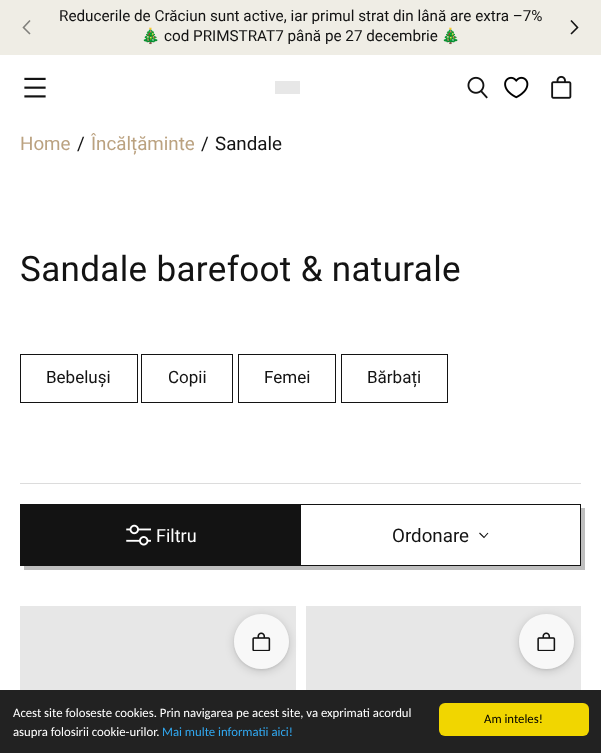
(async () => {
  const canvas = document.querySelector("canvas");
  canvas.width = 601;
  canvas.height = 753;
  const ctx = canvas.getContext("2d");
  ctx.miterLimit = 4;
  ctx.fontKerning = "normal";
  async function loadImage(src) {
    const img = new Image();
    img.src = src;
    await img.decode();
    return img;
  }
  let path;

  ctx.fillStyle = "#ffffff";
  ctx.fillRect(0, 0, 601, 753);
  ctx.fillStyle = "#efede5";
  ctx.fillRect(0, 0, 601, 55);
  path = new Path2D("M30 20.5L23.5 27.5L30 34");
  ctx.strokeStyle = "#81807c";
  ctx.lineWidth = 1.6;
  ctx.stroke(path);
  path = new Path2D("M571 34L577.5 27.5L571 20.5");
  ctx.strokeStyle = "#131313";
  ctx.stroke(path);
  ctx.drawImage(await loadImage("img/1.png"), 24, 77, 22, 21);
  ctx.fillStyle = "#e7e7e7";
  ctx.fillRect(275, 81, 25, 13);
  ctx.drawImage(await loadImage("img/2.png"), 467, 76, 21, 23);
  ctx.drawImage(await loadImage("img/3.png"), 504, 76, 25, 23);
  ctx.drawImage(await loadImage("img/4.png"), 551, 75, 21, 24);
  ctx.lineWidth = 1;
  ctx.strokeRect(20.5, 354.5, 117, 48);
  ctx.strokeRect(141.5, 354.5, 91, 48);
  ctx.strokeRect(238.5, 354.5, 97, 48);
  ctx.strokeRect(341.5, 354.5, 106, 48);
  ctx.fillStyle = "#dcdcdc";
  ctx.fillRect(20, 483, 561, 1);
  ctx.fillStyle = "#bfbfbf";
  path = new Path2D("M24 566V570H585V508H581V566Z");
  ctx.fill(path);
  ctx.strokeRect(20.5, 504.5, 560, 61);
  ctx.fillStyle = "#131313";
  ctx.fillRect(21, 505, 280, 60);
  ctx.drawImage(await loadImage("img/5.png"), 126, 524, 25, 22);
  path = new Path2D("M479.5 533L484 537.5L488 533");
  ctx.lineWidth = 1.1;
  ctx.stroke(path);
  ctx.fillStyle = "#e7e7e7";
  ctx.fillRect(20, 606, 276, 84);
  ctx.save();
  path = new Path2D("M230 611H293V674H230ZM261.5 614C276.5 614 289 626.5 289 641.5C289 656.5 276.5 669 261.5 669C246.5 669 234 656.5 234 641.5C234 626.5 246.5 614 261.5 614Z");
  ctx.clip(path, "evenodd");
  ctx.fillStyle = "rgba(0, 0, 0, 0.08)";
  ctx.filter = "blur(1px)";
  ctx.beginPath();
  ctx.roundRect(234, 615, 55, 55, 27.5);
  ctx.fill();
  ctx.filter = "none";
  ctx.restore();
  ctx.save();
  path = new Path2D("M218 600H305V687H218ZM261.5 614C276.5 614 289 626.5 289 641.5C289 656.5 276.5 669 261.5 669C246.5 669 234 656.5 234 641.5C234 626.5 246.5 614 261.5 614Z");
  ctx.clip(path, "evenodd");
  ctx.fillStyle = "rgba(0, 0, 0, 0.16)";
  ctx.filter = "blur(5px)";
  ctx.beginPath();
  ctx.roundRect(234, 616, 55, 55, 27.5);
  ctx.fill();
  ctx.filter = "none";
  ctx.restore();
  ctx.fillStyle = "rgba(255, 255, 255, 0.7)";
  ctx.beginPath();
  ctx.arc(261.5, 641.5, 27.5, 0, Math.PI * 2);
  ctx.fill();
  ctx.drawImage(await loadImage("img/6.png"), 252, 632, 19, 19);
  ctx.fillStyle = "#e7e7e7";
  ctx.fillRect(306, 606, 275, 84);
  ctx.save();
  path = new Path2D("M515 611H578V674H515ZM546.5 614C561.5 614 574 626.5 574 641.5C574 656.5 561.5 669 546.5 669C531.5 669 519 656.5 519 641.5C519 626.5 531.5 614 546.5 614Z");
  ctx.clip(path, "evenodd");
  ctx.fillStyle = "rgba(0, 0, 0, 0.08)";
  ctx.filter = "blur(1px)";
  ctx.beginPath();
  ctx.roundRect(519, 615, 55, 55, 27.5);
  ctx.fill();
  ctx.filter = "none";
  ctx.restore();
  ctx.save();
  path = new Path2D("M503 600H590V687H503ZM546.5 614C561.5 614 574 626.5 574 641.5C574 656.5 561.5 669 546.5 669C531.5 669 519 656.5 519 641.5C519 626.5 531.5 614 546.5 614Z");
  ctx.clip(path, "evenodd");
  ctx.fillStyle = "rgba(0, 0, 0, 0.16)";
  ctx.filter = "blur(5px)";
  ctx.beginPath();
  ctx.roundRect(519, 616, 55, 55, 27.5);
  ctx.fill();
  ctx.filter = "none";
  ctx.restore();
  ctx.fillStyle = "rgba(255, 255, 255, 0.7)";
  ctx.beginPath();
  ctx.arc(546.5, 641.5, 27.5, 0, Math.PI * 2);
  ctx.fill();
  ctx.drawImage(await loadImage("img/6.png"), 537, 632, 19, 19);
  ctx.fillStyle = "#222222";
  ctx.fillRect(0, 690, 601, 63);
  ctx.fillStyle = "#f1d600";
  ctx.beginPath();
  ctx.roundRect(439, 703, 150, 33, 6);
  ctx.fill();
  ctx.font = "15.25px Roboto";
  ctx.fillStyle = "#131313";
  ctx.fillText("Reducerile de Crăciun sunt active, iar primul strat din lână are extra –7%", 59, 21);
  ctx.font = "15.25px Noto Color Emoji";
  ctx.fillText("🎄", 141, 41);
  ctx.font = "15.25px Roboto";
  ctx.fillText("cod PRIMSTRAT7 până pe 27 decembrie", 164, 41);
  ctx.font = "15.25px Noto Color Emoji";
  ctx.fillText("🎄", 441, 41);
  ctx.font = "18.75px Roboto";
  ctx.fillStyle = "#bba280";
  ctx.fillText("Home", 20, 150);
  ctx.fillStyle = "#131313";
  ctx.fillText("/", 77, 150);
  ctx.fillStyle = "#bba280";
  ctx.fillText("Încălțăminte", 91, 150);
  ctx.fillStyle = "#131313";
  ctx.fillText("/", 201, 150);
  ctx.fillText("Sandale", 215, 150);
  ctx.letterSpacing = "0.35px";
  ctx.font = "35px Roboto";
  ctx.fillText("Sandale barefoot & naturale", 20, 281);
  ctx.letterSpacing = "0px";
  ctx.font = "17px Roboto";
  for (const [text, x, y] of [
    ["Bebeluși", 46, 383],
    ["Copii", 168, 383],
    ["Femei", 264, 383],
    ["Bărbați", 367, 383],
  ]) {
    ctx.fillText(text, x, y);
  }
  ctx.font = "18px Roboto";
  ctx.fillStyle = "#ffffff";
  ctx.fillText("Filtru", 156, 542);
  ctx.font = "18.75px Roboto";
  ctx.fillStyle = "#131313";
  ctx.fillText("Ordonare", 392, 542);
  ctx.font = "12.75px Carlito";
  ctx.fillStyle = "#ffffff";
  ctx.fillText("Acest site foloseste cookies. Prin navigarea pe acest site, va exprimati acordul", 13, 717);
  ctx.fillText("asupra folosirii cookie-urilor.", 13, 736);
  ctx.fillStyle = "#31a8f0";
  ctx.fillText("Mai multe informatii aici!", 162, 736);
  ctx.fillStyle = "#000000";
  ctx.fillText("Am inteles!", 484, 723);
})();
